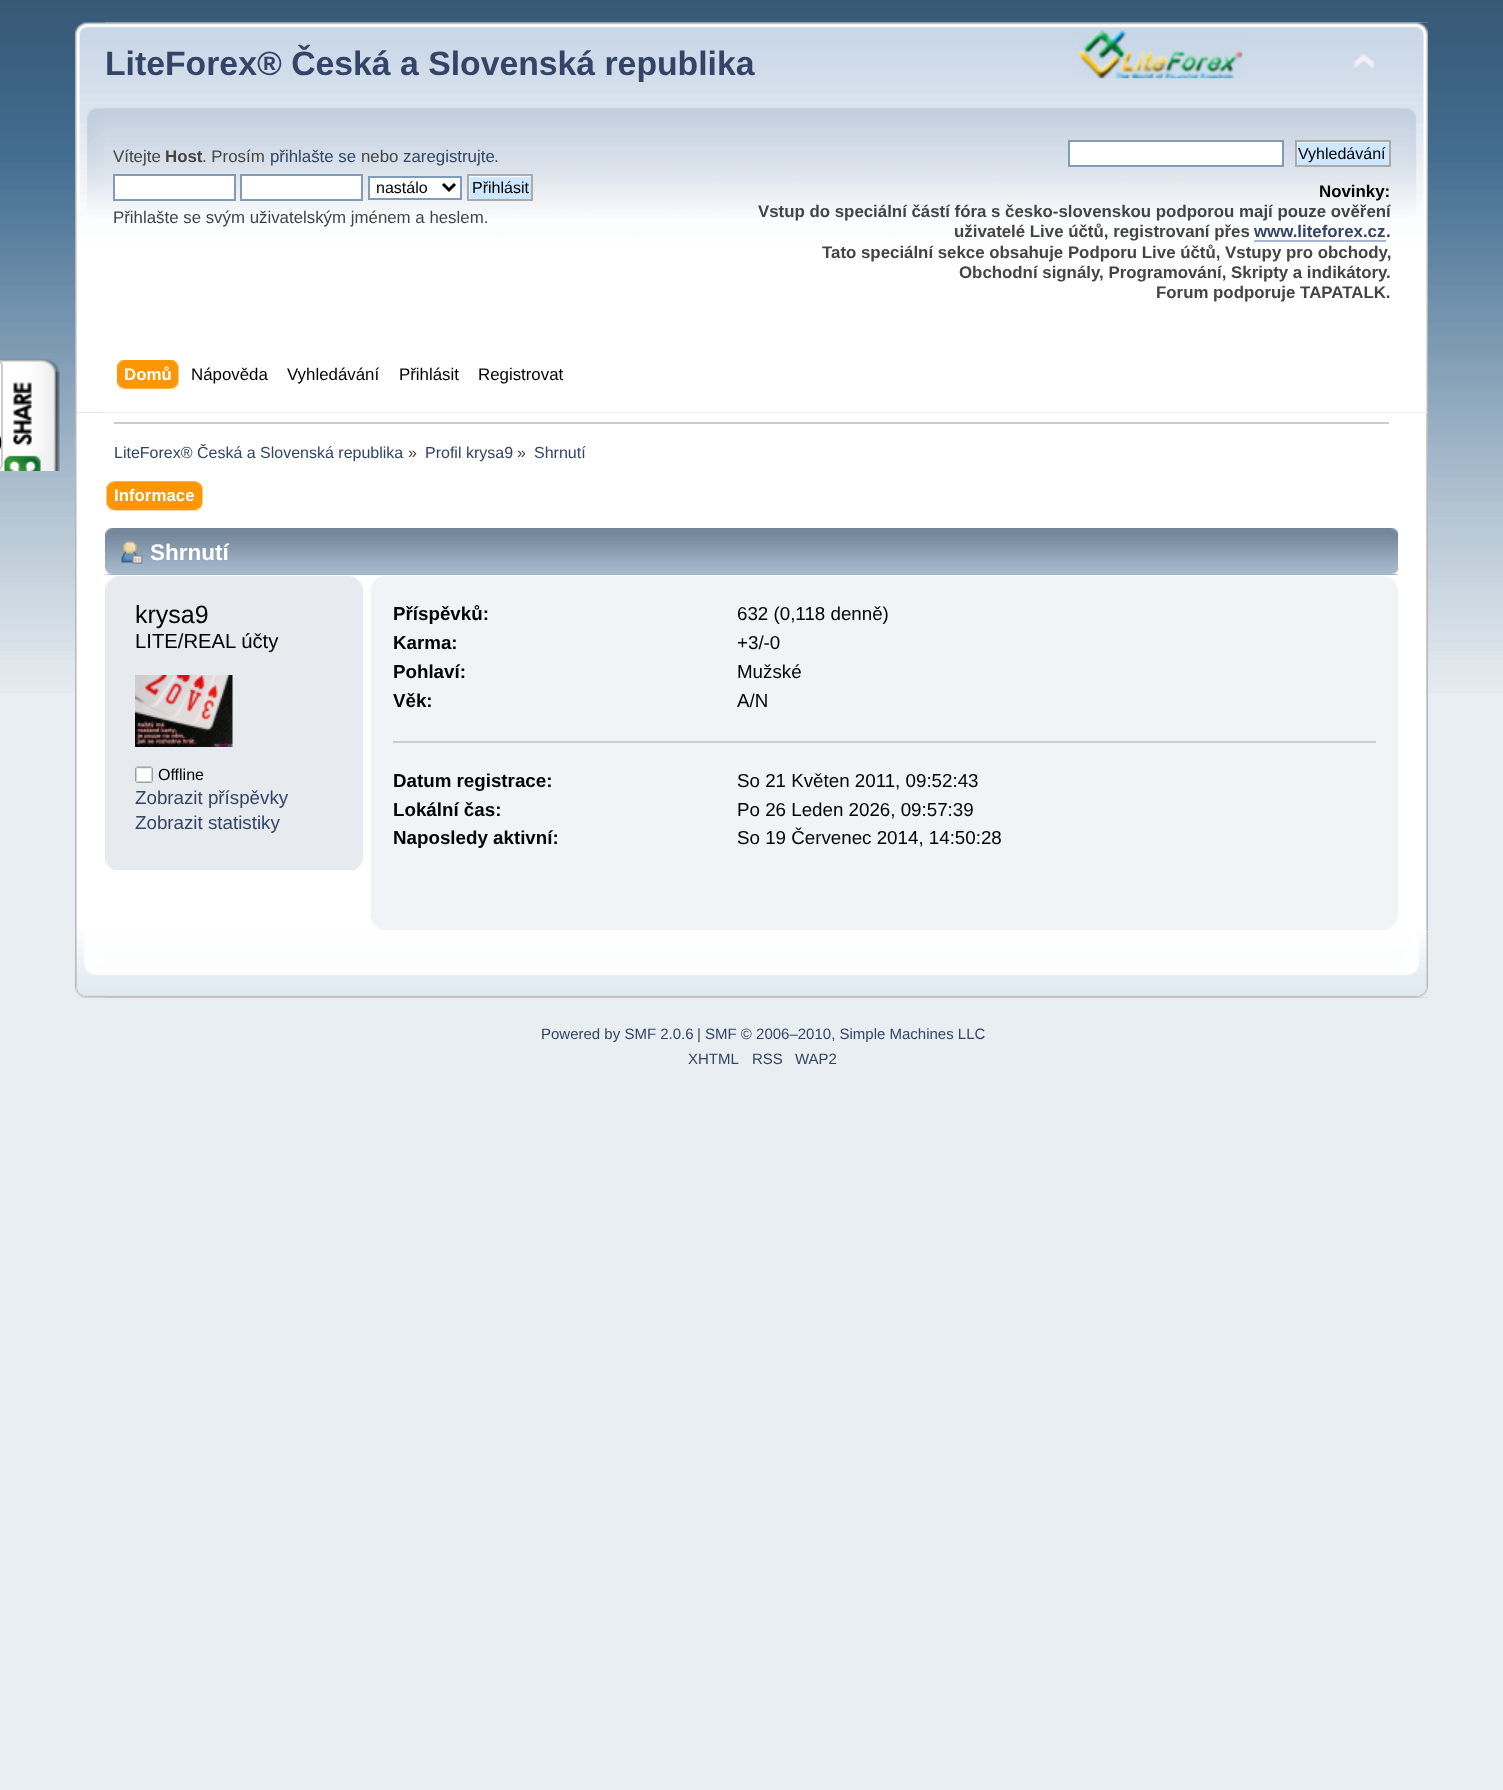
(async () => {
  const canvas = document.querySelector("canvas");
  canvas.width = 1503;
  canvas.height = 1790;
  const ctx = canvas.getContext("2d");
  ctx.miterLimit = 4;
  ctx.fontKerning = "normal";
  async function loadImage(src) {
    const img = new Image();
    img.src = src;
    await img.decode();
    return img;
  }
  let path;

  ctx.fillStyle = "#e9eef2";
  ctx.fillRect(0, 0, 1503, 1790);
  ctx.drawImage(await loadImage("img/1.png"), 0, 0, 1503, 693);
  ctx.drawImage(await loadImage("img/2.png"), 75, 22, 1353, 391);
  ctx.drawImage(await loadImage("img/3.png"), 105, 22, 1323, 391);
  ctx.drawImage(await loadImage("img/4.png"), 1078, 30, 165, 49);
  ctx.drawImage(await loadImage("img/5.png"), 1353, 53, 22, 17);
  ctx.fillStyle = "#ffffff";
  ctx.beginPath();
  ctx.rect(114, 175, 121, 25);
  ctx.fill();
  ctx.strokeStyle = "#7f9db9";
  ctx.lineWidth = 2;
  ctx.stroke();
  ctx.beginPath();
  ctx.rect(241, 175, 121, 25);
  ctx.fill();
  ctx.stroke();
  ctx.beginPath();
  ctx.rect(369, 177, 92, 22);
  ctx.fill();
  ctx.stroke();
  path = new Path2D("M443 184L449 190L455 184");
  ctx.strokeStyle = "#000000";
  ctx.lineWidth = 3;
  ctx.stroke(path);
  ctx.drawImage(await loadImage("img/6.png"), 469, 176, 62, 23);
  ctx.strokeStyle = "#aaaaaa";
  ctx.lineWidth = 2;
  ctx.strokeRect(468, 175, 64, 25);
  ctx.beginPath();
  ctx.rect(1069, 141, 214, 25);
  ctx.fill();
  ctx.strokeStyle = "#7f9db9";
  ctx.stroke();
  ctx.drawImage(await loadImage("img/7.png"), 1297, 142, 92, 23);
  ctx.strokeStyle = "#aaaaaa";
  ctx.strokeRect(1296, 141, 94, 25);
  ctx.fillStyle = "#a8b6cf";
  ctx.fillRect(1254, 240, 132, 2);
  ctx.drawImage(await loadImage("img/8.png"), 124, 360, 55, 29);
  ctx.drawImage(await loadImage("img/9.png"), 117, 360, 54, 29);
  ctx.drawImage(await loadImage("img/10.png"), 75, 412, 1353, 520);
  ctx.drawImage(await loadImage("img/11.png"), 1426, 412, 2, 520);
  ctx.fillStyle = "#cccccc";
  ctx.fillRect(114, 422, 1275, 2);
  ctx.drawImage(await loadImage("img/12.png"), 114, 481, 89, 30);
  ctx.drawImage(await loadImage("img/13.png"), 106, 481, 89, 30);
  ctx.drawImage(await loadImage("img/14.png"), 0, 358, 60, 113);
  ctx.fillStyle = "#ffffff";
  ctx.beginPath();
  ctx.roundRect(-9, 360, 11, 110, 7);
  ctx.fill();
  ctx.strokeStyle = "#cccccc";
  ctx.stroke();
  ctx.drawImage(await loadImage("img/15.png"), 0, 436, 2, 14);
  ctx.fillStyle = "#99abbf";
  ctx.fillRect(105, 574, 1293, 1);
  ctx.drawImage(await loadImage("img/16.png"), 105, 528, 1293, 47);
  ctx.drawImage(await loadImage("img/17.png"), 1391, 528, 7, 47);
  ctx.drawImage(await loadImage("img/18.png"), 121, 541, 22, 23);
  ctx.fillStyle = "#e7eaef";
  ctx.fillRect(105, 576, 258, 294);
  ctx.drawImage(await loadImage("img/19.png"), 105, 576, 13, 13);
  ctx.drawImage(await loadImage("img/20.png"), 350, 576, 13, 12);
  ctx.drawImage(await loadImage("img/21.png"), 135, 675, 98, 72);
  ctx.drawImage(await loadImage("img/22.png"), 135, 766, 18, 17);
  ctx.drawImage(await loadImage("img/23.png"), 105, 859, 8, 11);
  ctx.drawImage(await loadImage("img/24.png"), 355, 859, 8, 11);
  ctx.fillStyle = "#f0f4f7";
  ctx.fillRect(371, 576, 1027, 354);
  ctx.drawImage(await loadImage("img/25.png"), 370, 576, 12, 17);
  ctx.drawImage(await loadImage("img/26.png"), 1386, 576, 12, 12);
  ctx.fillStyle = "#cccccc";
  ctx.fillRect(393, 741, 983, 2);
  ctx.drawImage(await loadImage("img/27.png"), 370, 913, 12, 17);
  ctx.drawImage(await loadImage("img/28.png"), 1386, 918, 12, 12);
  ctx.drawImage(await loadImage("img/29.png"), 75, 931, 1353, 67);
  ctx.drawImage(await loadImage("img/30.png"), 105, 931, 1323, 67);
  ctx.font = "bold 33.75px Liberation Sans";
  ctx.fillStyle = "#334466";
  ctx.fillText("LiteForex® Česká a Slovenská republika", 105, 75);
  ctx.font = "16.85px Liberation Sans";
  ctx.fillStyle = "#444444";
  ctx.fillText("Vítejte", 113, 162);
  ctx.font = "bold 16.85px Liberation Sans";
  ctx.fillText("Host", 165, 162);
  ctx.font = "16.85px Liberation Sans";
  ctx.fillText(". Prosím", 202, 162);
  ctx.fillStyle = "#334466";
  ctx.fillText("přihlašte se", 270, 162);
  ctx.fillStyle = "#444444";
  ctx.fillText("nebo", 361, 162);
  ctx.fillStyle = "#334466";
  ctx.fillText("zaregistrujte", 403, 162);
  ctx.fillStyle = "#444444";
  ctx.fillText(".", 494, 162);
  ctx.font = "16px Liberation Sans";
  ctx.fillStyle = "#000000";
  ctx.fillText("nastálo", 376, 193);
  ctx.fillText("Přihlásit", 472, 193);
  ctx.font = "16.85px Liberation Sans";
  ctx.fillStyle = "#444444";
  ctx.fillText("Přihlašte se svým uživatelským jménem a heslem.", 113, 223);
  ctx.font = "16px Liberation Sans";
  ctx.fillStyle = "#000000";
  ctx.fillText("Vyhledávání", 1298, 159);
  ctx.font = "bold 16.85px Liberation Sans";
  ctx.fillText("Novinky:", 1319, 197);
  ctx.fillStyle = "#444444";
  ctx.fillText("Vstup do speciální částí fóra s česko-slovenskou podporou mají pouze ověření", 758, 217);
  ctx.fillText("uživatelé Live účtů, registrovaní přes", 954, 237);
  ctx.fillStyle = "#334466";
  ctx.fillText("www.liteforex.cz", 1254, 237);
  ctx.fillStyle = "#444444";
  for (const [text, x, y] of [
    [".", 1386, 237],
    ["Tato speciální sekce obsahuje Podporu Live účtů, Vstupy pro obchody,", 822, 258],
    ["Obchodní signály, Programování, Skripty a indikátory.", 959, 278],
    ["Forum podporuje TAPATALK.", 1156, 298],
  ]) {
    ctx.fillText(text, x, y);
  }
  ctx.fillStyle = "#ffffff";
  ctx.fillText("Domů", 124, 380);
  ctx.font = "16.85px Liberation Sans";
  ctx.fillStyle = "#000000";
  for (const [text, x, y] of [
    ["Nápověda", 191, 380],
    ["Vyhledávání", 287, 380],
    ["Přihlásit", 399, 380],
    ["Registrovat", 478, 380],
  ]) {
    ctx.fillText(text, x, y);
  }
  ctx.font = "16px Liberation Sans";
  ctx.fillStyle = "#334466";
  ctx.fillText("LiteForex® Česká a Slovenská republika", 114, 458);
  ctx.fillStyle = "#444444";
  ctx.fillText("»", 408, 458);
  ctx.fillStyle = "#334466";
  ctx.fillText("Profil krysa9", 425, 458);
  ctx.fillStyle = "#444444";
  ctx.fillText("»", 517, 458);
  ctx.fillStyle = "#334466";
  ctx.fillText("Shrnutí", 534, 458);
  ctx.font = "bold 16.85px Liberation Sans";
  ctx.fillStyle = "#ffffff";
  ctx.fillText("Informace", 114, 501);
  ctx.font = "bold 22.5px Liberation Sans";
  ctx.fillText("Shrnutí", 150, 560);
  ctx.font = "25px Liberation Sans";
  ctx.fillStyle = "#000000";
  ctx.fillText("krysa9", 135, 623);
  ctx.font = "20.25px Liberation Sans";
  ctx.fillText("LITE/REAL účty", 135, 648);
  ctx.font = "16px Liberation Sans";
  ctx.fillText("Offline", 158, 780);
  ctx.font = "18.75px Liberation Sans";
  ctx.fillStyle = "#334466";
  ctx.fillText("Zobrazit příspěvky", 135, 804);
  ctx.fillText("Zobrazit statistiky", 135, 829);
  ctx.font = "bold 18.75px Liberation Sans";
  ctx.fillStyle = "#000000";
  ctx.fillText("Příspěvků:", 393, 620);
  ctx.font = "18.75px Liberation Sans";
  ctx.fillText("632 (0,118 denně)", 737, 620);
  ctx.font = "bold 18.75px Liberation Sans";
  ctx.fillText("Karma:", 393, 649);
  ctx.font = "18.75px Liberation Sans";
  ctx.fillText("+3/-0", 737, 649);
  ctx.font = "bold 18.75px Liberation Sans";
  ctx.fillText("Pohlaví:", 393, 678);
  ctx.font = "18.75px Liberation Sans";
  ctx.fillText("Mužské", 737, 678);
  ctx.font = "bold 18.75px Liberation Sans";
  ctx.fillText("Věk:", 393, 707);
  ctx.font = "18.75px Liberation Sans";
  ctx.fillText("A/N", 737, 707);
  ctx.font = "bold 18.75px Liberation Sans";
  ctx.fillText("Datum registrace:", 393, 787);
  ctx.font = "18.75px Liberation Sans";
  ctx.fillText("So 21 Květen 2011, 09:52:43", 737, 787);
  ctx.font = "bold 18.75px Liberation Sans";
  ctx.fillText("Lokální čas:", 393, 816);
  ctx.font = "18.75px Liberation Sans";
  ctx.fillText("Po 26 Leden 2026, 09:57:39", 737, 816);
  ctx.font = "bold 18.75px Liberation Sans";
  ctx.fillText("Naposledy aktivní:", 393, 844);
  ctx.font = "18.75px Liberation Sans";
  ctx.fillText("So 19 Červenec 2014, 14:50:28", 737, 844);
  ctx.font = "15px Liberation Sans";
  ctx.fillStyle = "#334466";
  ctx.fillText("Powered by SMF 2.0.6", 541, 1039);
  ctx.fillStyle = "#444444";
  ctx.fillText("|", 697, 1039);
  ctx.fillStyle = "#334466";
  for (const [text, x, y] of [
    ["SMF © 2006–2010, Simple Machines LLC", 705, 1039],
    ["XHTML", 688, 1064],
    ["RSS", 752, 1064],
    ["WAP2", 795, 1064],
  ]) {
    ctx.fillText(text, x, y);
  }
})();
